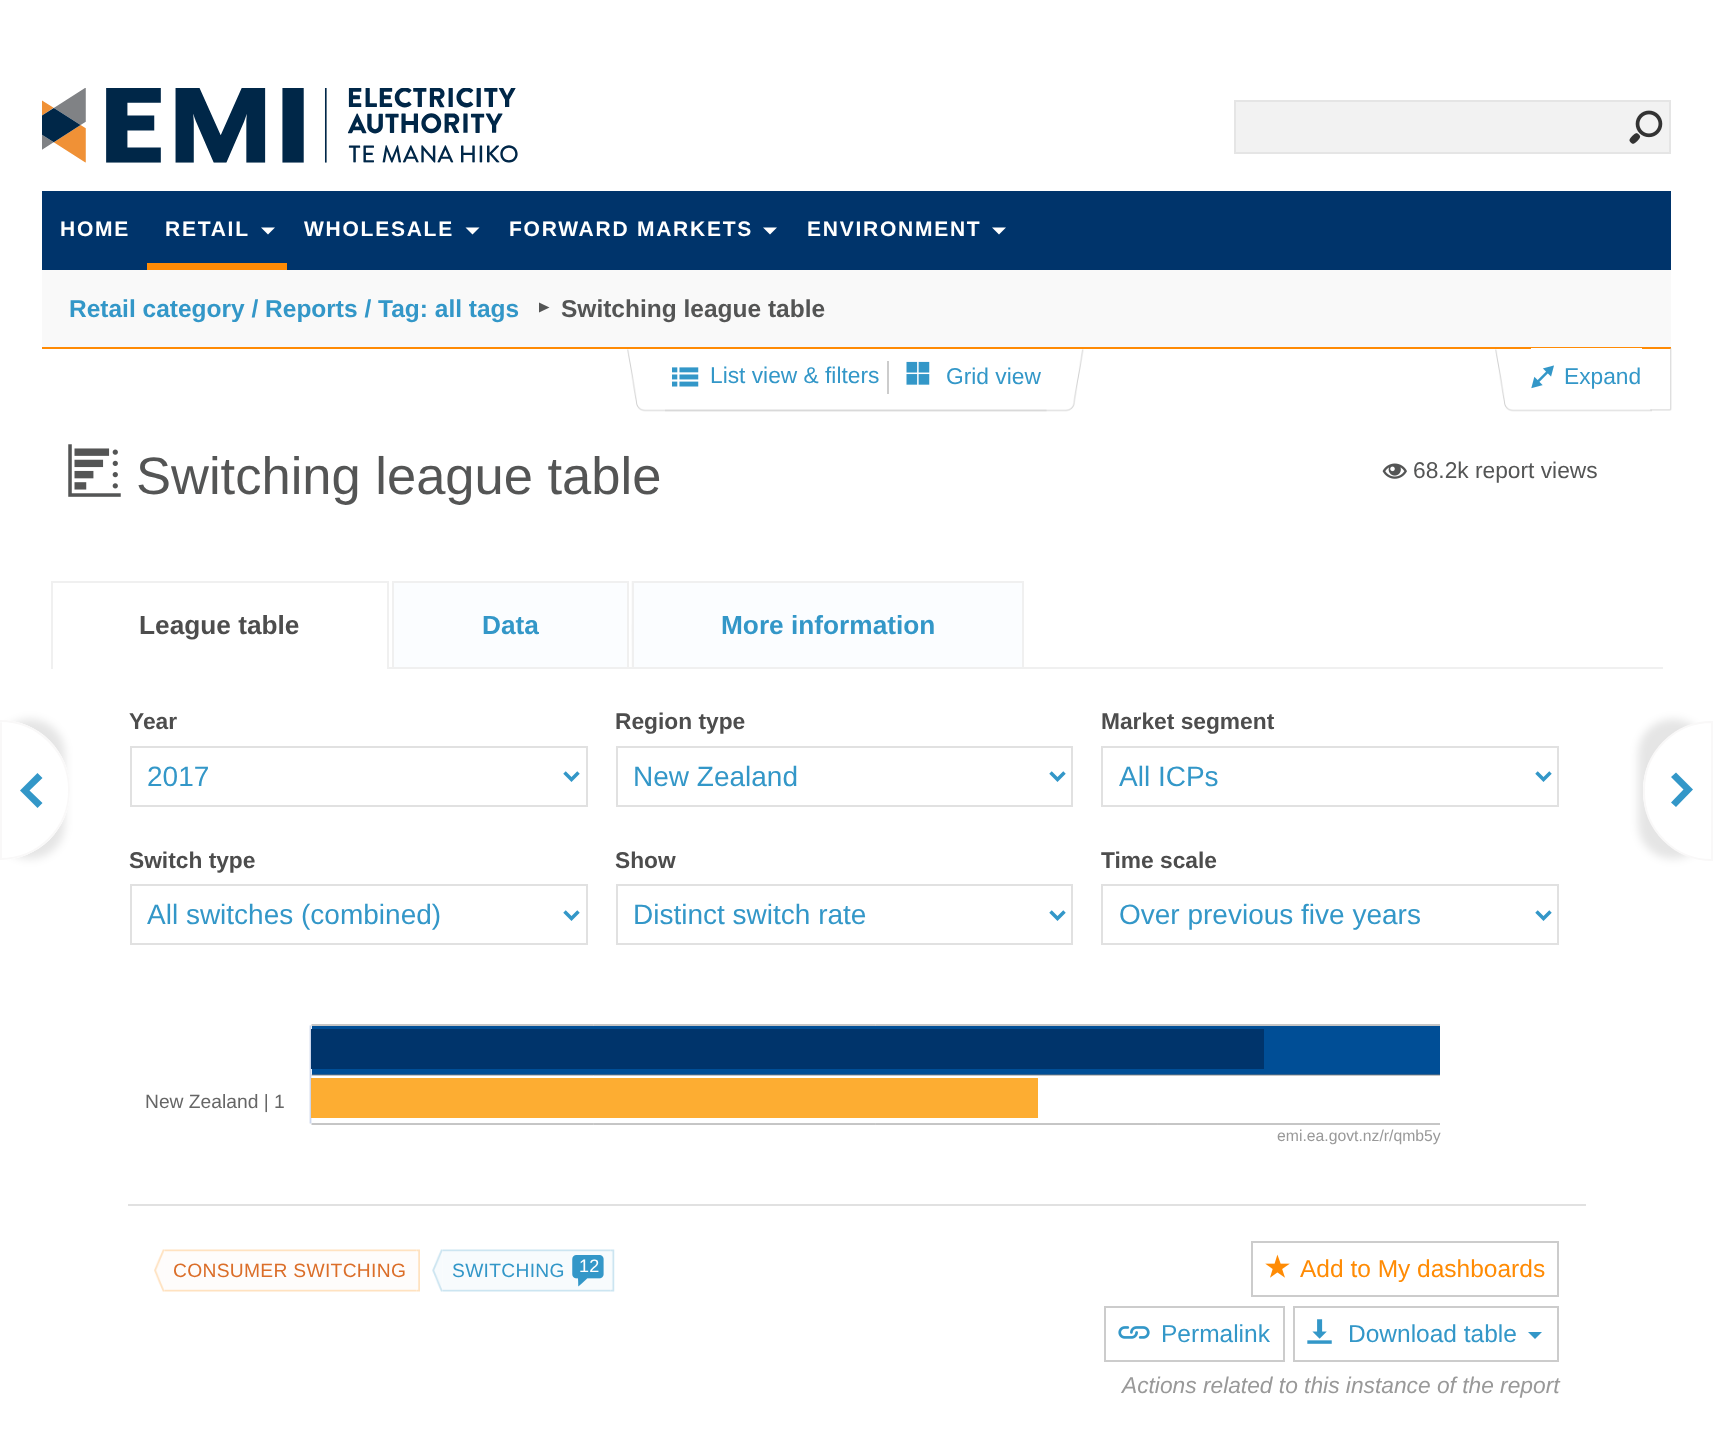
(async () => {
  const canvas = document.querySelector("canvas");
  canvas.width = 1713;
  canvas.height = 1440;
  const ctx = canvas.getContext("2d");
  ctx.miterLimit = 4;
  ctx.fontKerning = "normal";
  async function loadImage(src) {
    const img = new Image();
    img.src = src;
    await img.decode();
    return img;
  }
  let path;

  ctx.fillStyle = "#ffffff";
  ctx.fillRect(0, 0, 1713, 1440);
  ctx.fillStyle = "#f2f2f2";
  ctx.beginPath();
  ctx.rect(1235, 101, 435, 52);
  ctx.fill();
  ctx.strokeStyle = "#e5e5e5";
  ctx.lineWidth = 2;
  ctx.stroke();
  ctx.drawImage(await loadImage("img/1.png"), 1629, 110, 34, 34);
  ctx.drawImage(await loadImage("img/2.png"), 42, 88, 476, 75);
  ctx.fillStyle = "#00346b";
  ctx.fillRect(42, 191, 1629, 79);
  ctx.fillStyle = "#ff8b05";
  ctx.fillRect(147, 263, 140, 7);
  ctx.fillStyle = "#ffffff";
  path = new Path2D("M261 227.5H275L268 234.5Z");
  ctx.fill(path);
  path = new Path2D("M465.5 227.5H479.5L472.5 234.5Z");
  ctx.fill(path);
  path = new Path2D("M763 227.5H777L770 234.5Z");
  ctx.fill(path);
  path = new Path2D("M992 227.5H1006L999 234.5Z");
  ctx.fill(path);
  ctx.fillStyle = "#f9f9f9";
  ctx.fillRect(42, 270, 1629, 77);
  ctx.fillStyle = "#ff8b05";
  ctx.fillRect(42, 347, 1629, 2);
  ctx.fillStyle = "#545555";
  path = new Path2D("M539 302.5L549.5 307.5L539 312.5Z");
  ctx.fill(path);
  ctx.drawImage(await loadImage("img/3.png"), 627, 349, 420, 63);
  ctx.drawImage(await loadImage("img/4.png"), 665, 349, 419, 63);
  ctx.fillStyle = "#cccccc";
  ctx.fillRect(887, 361, 2, 33);
  ctx.drawImage(await loadImage("img/5.png"), 672, 367, 27, 20);
  ctx.drawImage(await loadImage("img/6.png"), 906, 361, 24, 24);
  ctx.drawImage(await loadImage("img/7.png"), 1495, 349, 157, 63);
  ctx.drawImage(await loadImage("img/8.png"), 1650, 348, 22, 63);
  ctx.fillStyle = "#ffffff";
  ctx.fillRect(1531, 348, 111, 1);
  ctx.drawImage(await loadImage("img/9.png"), 1531, 365, 23, 24);
  ctx.drawImage(await loadImage("img/10.png"), 68, 444, 53, 53);
  ctx.drawImage(await loadImage("img/11.png"), 1382, 463, 25, 16);
  ctx.save();
  path = new Path2D("M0 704H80V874H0ZM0 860V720C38.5 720 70 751.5 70 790C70 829 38.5 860 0 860Z");
  ctx.clip(path, "evenodd");
  ctx.fillStyle = "rgba(0, 0, 0, 0.1)";
  ctx.filter = "blur(4.5px)";
  ctx.beginPath();
  ctx.roundRect(-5, 719, 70, 140, 70);
  ctx.fill();
  ctx.filter = "none";
  ctx.restore();
  ctx.fillStyle = "rgba(255, 255, 255, 0.8)";
  path = new Path2D("M0 860V720C39 720 70 751 70 790C70 829 39 860 0 860Z");
  ctx.fill(path);
  path = new Path2D("M0 859H1V721H0C38 721 69 752 69 790C69 828.5 38 859 0 859Z");
  ctx.strokeStyle = "#f9f8f8";
  ctx.lineWidth = 1.8;
  ctx.stroke(path);
  ctx.fillStyle = "#3397c8";
  path = new Path2D("M42.5 778L29.5 790.5L42.5 803L37.5 808L20 790.5L37.5 773Z");
  ctx.fill(path);
  ctx.fillStyle = "#f0f0f0";
  ctx.fillRect(389, 667, 1274, 2);
  ctx.drawImage(await loadImage("img/12.png"), 53, 667, 334, 2);
  for (const [x, y, w, h, color] of [
    [51, 581, 338, 2, "#f0f0f0"],
    [387, 581, 2, 88, "#f0f0f0"],
    [51, 581, 2, 88, "#f0f0f0"],
    [392, 581, 236, 2, "#f0f0f0"],
    [627, 581, 2, 86, "#f0f0f0"],
    [392, 581, 2, 86, "#f0f0f0"],
    [394, 583, 233, 84, "#fbfdff"],
  ]) {
    ctx.fillStyle = color;
    ctx.fillRect(x, y, w, h);
  }
  ctx.drawImage(await loadImage("img/13.png"), 631, 581, 1, 86);
  for (const [x, y, w, h, color] of [
    [632, 581, 392, 2, "#f0f0f0"],
    [1022, 581, 2, 86, "#f0f0f0"],
    [632, 581, 2, 86, "#f0f0f0"],
    [634, 583, 388, 84, "#fbfdff"],
  ]) {
    ctx.fillStyle = color;
    ctx.fillRect(x, y, w, h);
  }
  ctx.strokeStyle = "#e1e1e1";
  ctx.lineWidth = 2;
  ctx.strokeRect(131, 747, 456, 59);
  path = new Path2D("M564.5 772.5L571.5 779.5L578.5 772.5");
  ctx.strokeStyle = "#3397c8";
  ctx.lineWidth = 3.5;
  ctx.stroke(path);
  ctx.strokeStyle = "#e1e1e1";
  ctx.lineWidth = 2;
  ctx.strokeRect(617, 747, 455, 59);
  path = new Path2D("M1050.5 772.5L1057.5 779.5L1064.5 772.5");
  ctx.strokeStyle = "#3397c8";
  ctx.lineWidth = 3.5;
  ctx.stroke(path);
  ctx.strokeStyle = "#e1e1e1";
  ctx.lineWidth = 2;
  ctx.strokeRect(1102, 747, 456, 59);
  path = new Path2D("M1536.5 772.5L1543.5 779.5L1550.5 772.5");
  ctx.strokeStyle = "#3397c8";
  ctx.lineWidth = 3.5;
  ctx.stroke(path);
  ctx.strokeStyle = "#e1e1e1";
  ctx.lineWidth = 2;
  ctx.strokeRect(131, 885, 456, 59);
  path = new Path2D("M564.5 911.5L571.5 918.5L578.5 911.5");
  ctx.strokeStyle = "#3397c8";
  ctx.lineWidth = 3.5;
  ctx.stroke(path);
  ctx.strokeStyle = "#e1e1e1";
  ctx.lineWidth = 2;
  ctx.strokeRect(617, 885, 455, 59);
  path = new Path2D("M1050.5 911.5L1057.5 918.5L1064.5 911.5");
  ctx.strokeStyle = "#3397c8";
  ctx.lineWidth = 3.5;
  ctx.stroke(path);
  ctx.strokeStyle = "#e1e1e1";
  ctx.lineWidth = 2;
  ctx.strokeRect(1102, 885, 456, 59);
  path = new Path2D("M1536.5 911.5L1543.5 918.5L1550.5 911.5");
  ctx.strokeStyle = "#3397c8";
  ctx.lineWidth = 3.5;
  ctx.stroke(path);
  ctx.fillStyle = "#004e96";
  ctx.fillRect(312, 1026, 1128, 49);
  path = new Path2D("M311.5 1075H1440");
  ctx.strokeStyle = "#808080";
  ctx.lineWidth = 0.9;
  ctx.stroke(path);
  path = new Path2D("M311.5 1025H1440");
  ctx.stroke(path);
  path = new Path2D("M311.5 1124H1440");
  ctx.stroke(path);
  path = new Path2D("M310.5 1025.5V1123.5");
  ctx.strokeStyle = "#ccd6eb";
  ctx.lineWidth = 1.8;
  ctx.stroke(path);
  for (const [x, y, w, h, color] of [
    [311, 1029, 953, 40, "#00346b"],
    [311, 1078, 727, 40, "#fdad32"],
    [128, 1204, 1458, 2, "#e1e1e1"],
  ]) {
    ctx.fillStyle = color;
    ctx.fillRect(x, y, w, h);
  }
  ctx.drawImage(await loadImage("img/14.png"), 154, 1249, 11, 43);
  ctx.drawImage(await loadImage("img/16.png"), 416, 1249, 4, 43);
  ctx.drawImage(await loadImage("img/15.png"), 164, 1249, 253, 43);
  ctx.drawImage(await loadImage("img/17.png"), 432, 1249, 11, 43);
  ctx.drawImage(await loadImage("img/20.png"), 610, 1249, 5, 43);
  ctx.drawImage(await loadImage("img/18.png"), 443, 1249, 168, 43);
  ctx.drawImage(await loadImage("img/19.png"), 572, 1255, 32, 32);
  ctx.strokeStyle = "#cccccc";
  ctx.lineWidth = 2;
  ctx.strokeRect(1252, 1242, 306, 54);
  ctx.drawImage(await loadImage("img/21.png"), 1265, 1254, 25, 24);
  ctx.strokeRect(1105, 1307, 179, 54);
  ctx.drawImage(await loadImage("img/22.png"), 1118, 1326, 32, 13);
  ctx.strokeRect(1294, 1307, 264, 54);
  ctx.drawImage(await loadImage("img/23.png"), 1307, 1319, 25, 25);
  ctx.fillStyle = "#3397c8";
  path = new Path2D("M1528 1332H1542L1535 1339Z");
  ctx.fill(path);
  ctx.save();
  path = new Path2D("M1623 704H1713V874H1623ZM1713 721V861C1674.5 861 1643 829.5 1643 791C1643 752.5 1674.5 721 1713 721Z");
  ctx.clip(path, "evenodd");
  ctx.fillStyle = "rgba(0, 0, 0, 0.1)";
  ctx.filter = "blur(4.5px)";
  ctx.beginPath();
  ctx.roundRect(1638, 719, 70, 140, 70);
  ctx.fill();
  ctx.filter = "none";
  ctx.restore();
  ctx.fillStyle = "rgba(255, 255, 255, 0.8)";
  ctx.beginPath();
  ctx.roundRect(1644, 722, 68, 138, [69, 0, 0, 69]);
  ctx.fill();
  ctx.strokeStyle = "#f9f8f8";
  ctx.stroke();
  ctx.fillStyle = "#3397c8";
  path = new Path2D("M1671 802.5L1683.5 789.5L1671 777L1676 772.5L1693 789.5L1676 807Z");
  ctx.fill(path);
  ctx.letterSpacing = "1.75px";
  ctx.font = "bold 21px Liberation Sans";
  ctx.fillStyle = "#ffffff";
  for (const [text, x, y] of [
    ["HOME", 60, 236],
    ["RETAIL", 165, 236],
    ["WHOLESALE", 304, 236],
    ["FORWARD MARKETS", 509, 236],
    ["ENVIRONMENT", 807, 236],
  ]) {
    ctx.fillText(text, x, y);
  }
  ctx.letterSpacing = "0px";
  ctx.font = "bold 24.5px Liberation Sans";
  ctx.fillStyle = "#3397c8";
  ctx.fillText("Retail category / Reports / Tag: all tags", 69, 317);
  ctx.fillStyle = "#545555";
  ctx.fillText("Switching league table", 561, 317);
  ctx.font = "22.75px Liberation Sans";
  ctx.fillStyle = "#3397c8";
  for (const [text, x, y] of [
    ["List view & filters", 710, 383],
    ["Grid view", 946, 384],
    ["Expand", 1564, 384],
  ]) {
    ctx.fillText(text, x, y);
  }
  ctx.font = "52.5px Liberation Sans";
  ctx.fillStyle = "#545555";
  ctx.fillText("Switching league table", 136, 494);
  ctx.font = "22.75px Liberation Sans";
  ctx.fillText("68.2k report views", 1413, 478);
  ctx.font = "bold 26.25px Liberation Sans";
  ctx.fillStyle = "#4d4d4d";
  ctx.fillText("League table", 139, 634);
  ctx.fillStyle = "#3397c8";
  ctx.fillText("Data", 482, 634);
  ctx.fillText("More information", 721, 634);
  ctx.font = "bold 22.75px Liberation Sans";
  ctx.fillStyle = "#4d4d4d";
  ctx.fillText("Year", 129, 729);
  ctx.font = "28px Liberation Sans";
  ctx.fillStyle = "#3397c8";
  ctx.fillText("2017", 147, 786);
  ctx.font = "bold 22.75px Liberation Sans";
  ctx.fillStyle = "#4d4d4d";
  ctx.fillText("Region type", 615, 729);
  ctx.font = "28px Liberation Sans";
  ctx.fillStyle = "#3397c8";
  ctx.fillText("New Zealand", 633, 786);
  ctx.font = "bold 22.75px Liberation Sans";
  ctx.fillStyle = "#4d4d4d";
  ctx.fillText("Market segment", 1101, 729);
  ctx.font = "28px Liberation Sans";
  ctx.fillStyle = "#3397c8";
  ctx.fillText("All ICPs", 1119, 786);
  ctx.font = "bold 22.75px Liberation Sans";
  ctx.fillStyle = "#4d4d4d";
  ctx.fillText("Switch type", 129, 868);
  ctx.font = "28px Liberation Sans";
  ctx.fillStyle = "#3397c8";
  ctx.fillText("All switches (combined)", 147, 924);
  ctx.font = "bold 22.75px Liberation Sans";
  ctx.fillStyle = "#4d4d4d";
  ctx.fillText("Show", 615, 868);
  ctx.font = "28px Liberation Sans";
  ctx.fillStyle = "#3397c8";
  ctx.fillText("Distinct switch rate", 633, 924);
  ctx.font = "bold 22.75px Liberation Sans";
  ctx.fillStyle = "#4d4d4d";
  ctx.fillText("Time scale", 1101, 868);
  ctx.font = "28px Liberation Sans";
  ctx.fillStyle = "#3397c8";
  ctx.fillText("Over previous five years", 1119, 924);
  ctx.font = "19.25px Liberation Sans";
  ctx.fillStyle = "#666666";
  ctx.fillText("New Zealand | 1", 145, 1108);
  ctx.font = "15.75px Liberation Sans";
  ctx.fillStyle = "#999999";
  ctx.fillText("emi.ea.govt.nz/r/qmb5y", 1277, 1141);
  ctx.letterSpacing = "0.3px";
  ctx.font = "19.25px Liberation Sans";
  ctx.fillStyle = "#db6e29";
  ctx.fillText("CONSUMER SWITCHING", 173, 1277);
  ctx.fillStyle = "#3397c8";
  ctx.fillText("SWITCHING", 452, 1277);
  ctx.font = "18px Liberation Sans";
  ctx.fillStyle = "#ffffff";
  ctx.fillText("12", 579, 1272);
  ctx.letterSpacing = "0px";
  ctx.font = "24.5px Liberation Sans";
  ctx.fillStyle = "#ff8b04";
  ctx.fillText("Add to My dashboards", 1300, 1277);
  ctx.fillStyle = "#3397c8";
  ctx.fillText("Permalink", 1161, 1342);
  ctx.fillText("Download table", 1348, 1342);
  ctx.font = "italic 22.75px Liberation Sans";
  ctx.fillStyle = "#999999";
  ctx.fillText("Actions related to this instance of the report", 1122, 1393);
})();
